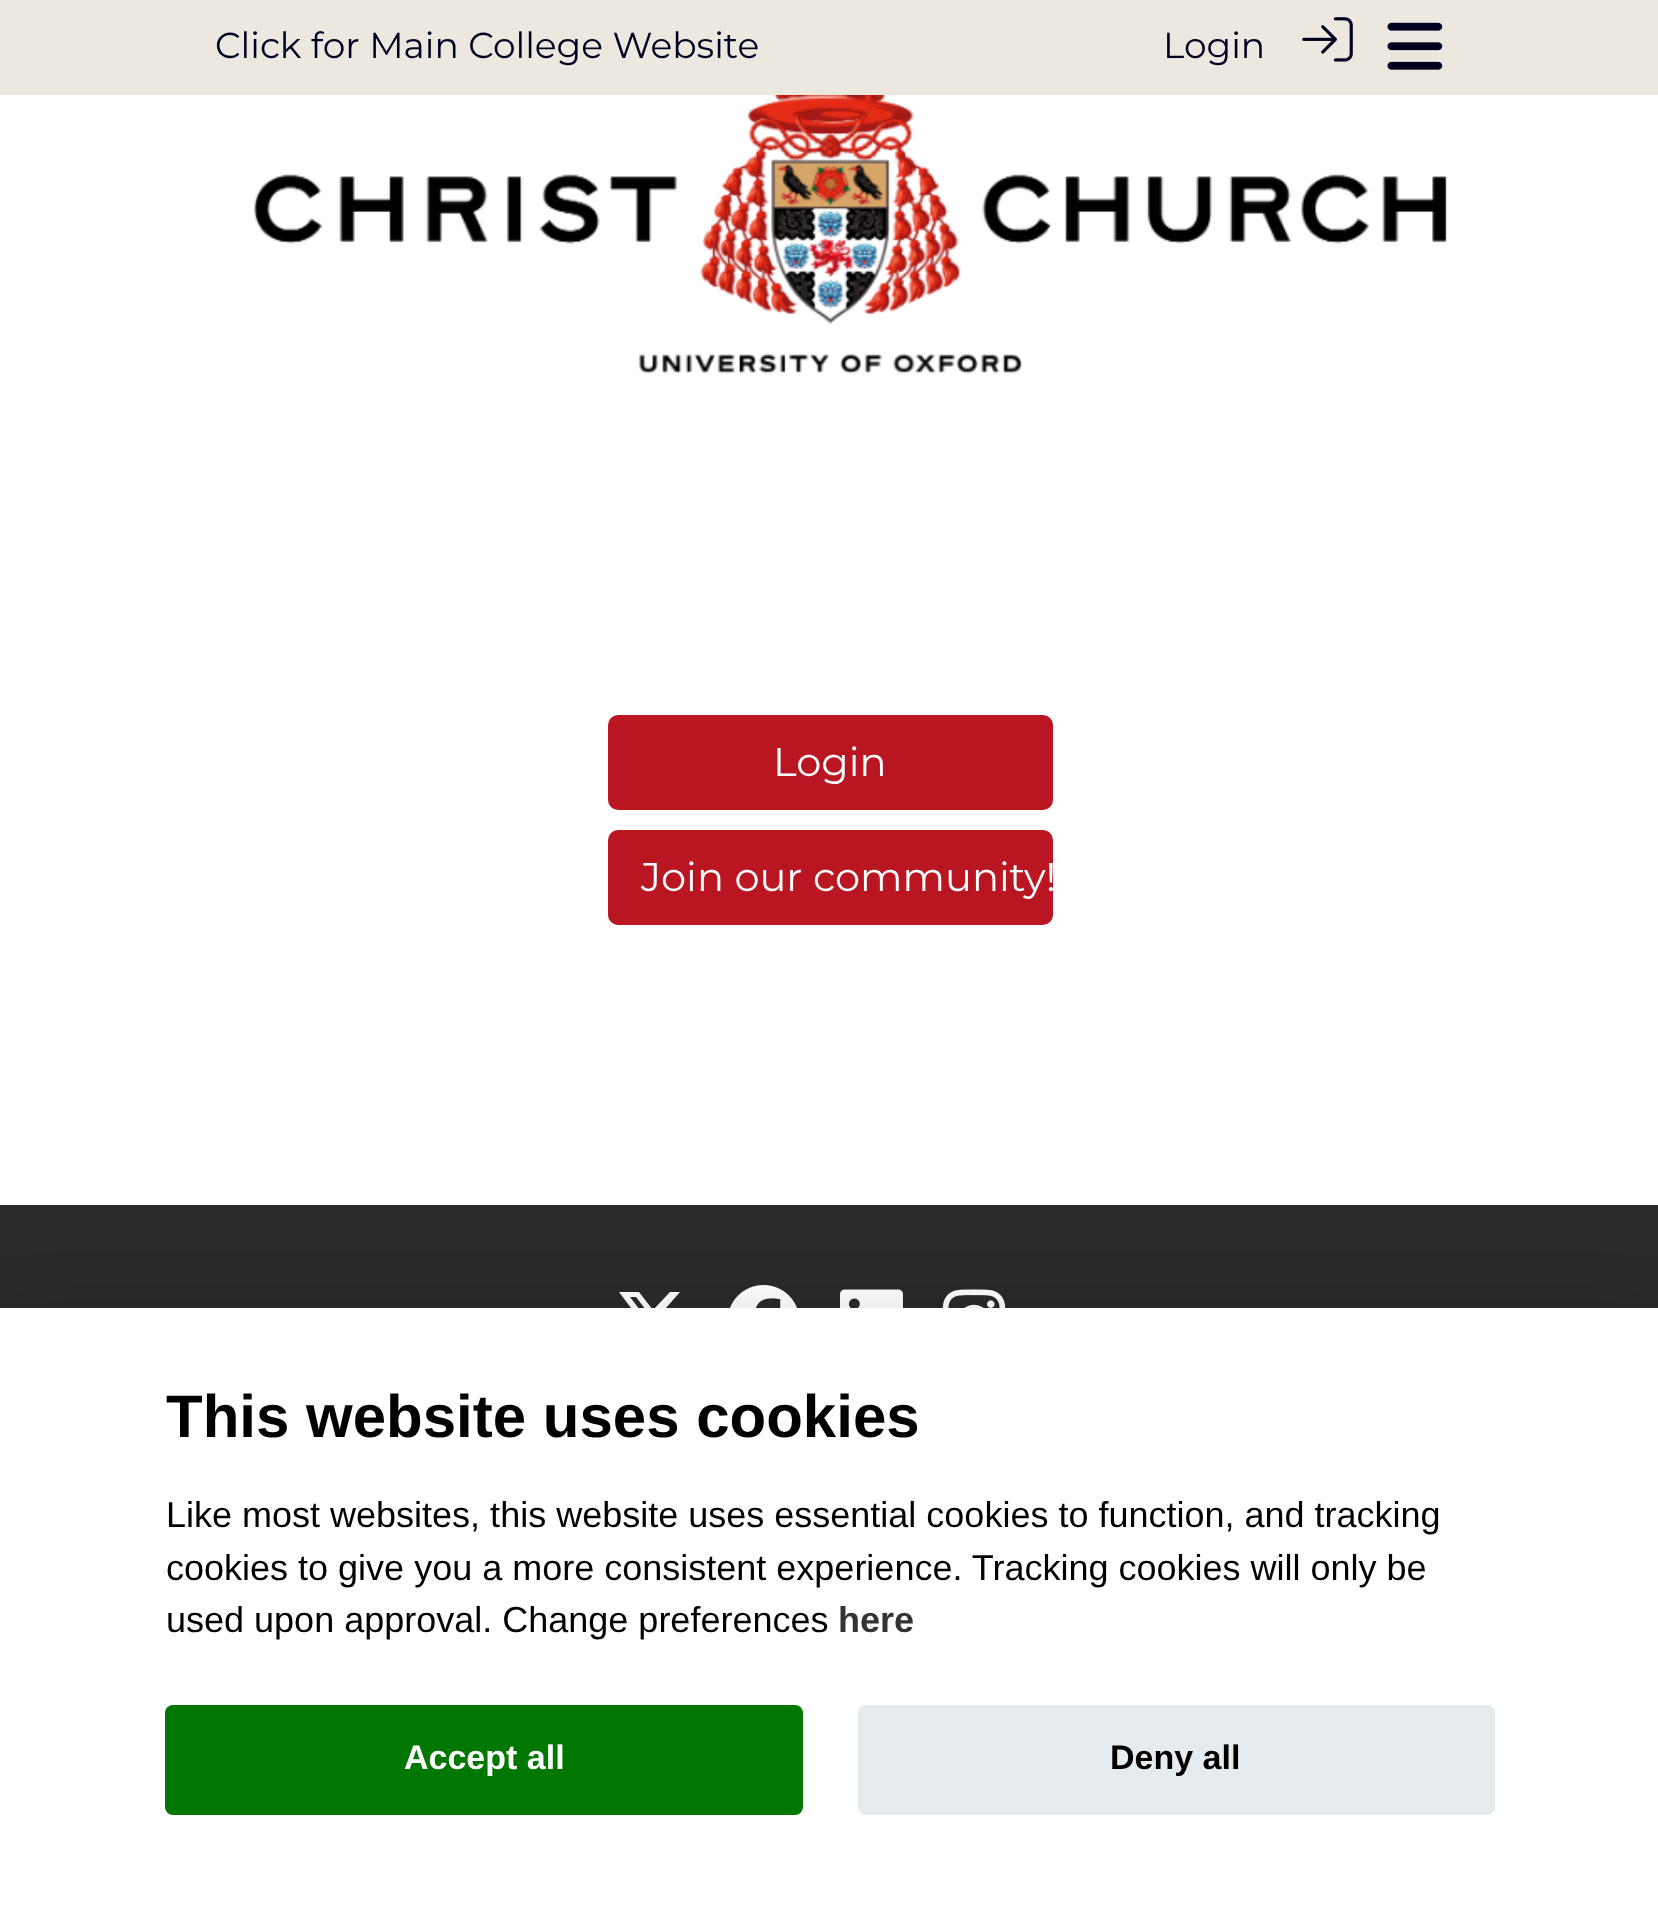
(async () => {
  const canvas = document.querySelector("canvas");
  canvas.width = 1658;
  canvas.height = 1909;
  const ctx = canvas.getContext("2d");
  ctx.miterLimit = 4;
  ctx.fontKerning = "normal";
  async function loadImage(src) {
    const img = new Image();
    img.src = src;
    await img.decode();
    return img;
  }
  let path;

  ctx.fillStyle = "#2b2a28";
  ctx.fillRect(0, 0, 1658, 1909);
  ctx.fillStyle = "#ece8df";
  ctx.fillRect(0, 0, 1658, 95);
  ctx.drawImage(await loadImage("img/1.png"), 1302, 17, 51, 45);
  ctx.drawImage(await loadImage("img/2.png"), 1387, 22, 56, 48);
  ctx.fillStyle = "#ffffff";
  ctx.fillRect(0, 95, 1658, 360);
  ctx.drawImage(await loadImage("img/3.png"), 254, 95, 1193, 279);
  ctx.fillRect(0, 455, 1658, 750);
  ctx.fillStyle = "#ba1622";
  ctx.beginPath();
  ctx.roundRect(608, 715, 445, 95, 10);
  ctx.fill();
  ctx.beginPath();
  ctx.roundRect(608, 830, 445, 95, 10);
  ctx.fill();
  ctx.fillStyle = "#ffffff";
  path = new Path2D("M670 1292H680L658 1317L683 1350H664L648 1330L630 1350H620L643 1324L619 1292H639L653 1310ZM666 1344H672L636 1297H630Z");
  ctx.fill(path);
  ctx.drawImage(await loadImage("img/4.png"), 730, 1285, 67, 23);
  ctx.drawImage(await loadImage("img/5.png"), 840, 1289, 63, 19);
  ctx.drawImage(await loadImage("img/6.png"), 942, 1289, 64, 19);
  ctx.fillStyle = "rgba(2, 2, 3, 0.28)";
  ctx.filter = "blur(37.5px)";
  ctx.beginPath();
  ctx.rect(0, 1333, 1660, 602);
  ctx.fill();
  ctx.filter = "none";
  ctx.fillStyle = "#ffffff";
  ctx.fillRect(0, 1308, 1658, 601);
  ctx.fillStyle = "#007700";
  ctx.beginPath();
  ctx.roundRect(165, 1705, 638, 110, 8);
  ctx.fill();
  ctx.fillStyle = "#e5ebef";
  ctx.beginPath();
  ctx.roundRect(858, 1705, 637, 110, 8);
  ctx.fill();
  ctx.font = "36px Montserrat";
  ctx.fillStyle = "#000122";
  ctx.fillText("Click for Main College Website", 215, 58);
  ctx.fillText("Login", 1163, 58);
  ctx.font = "40px Montserrat";
  ctx.fillStyle = "#ffffff";
  ctx.fillText("Login", 773, 776);
  ctx.fillText("Join our community!", 641, 891);
  ctx.font = "bold 60px Liberation Sans";
  ctx.fillStyle = "#000000";
  ctx.fillText("This website uses cookies", 166, 1437);
  ctx.font = "36px Liberation Sans";
  for (const [text, x, y] of [
    ["Like most websites, this website uses essential cookies to function, and tracking", 166, 1527],
    ["cookies to give you a more consistent experience. Tracking cookies will only be", 166, 1580],
    ["used upon approval. Change preferences", 166, 1632],
  ]) {
    ctx.fillText(text, x, y);
  }
  ctx.font = "bold 36px Liberation Sans";
  ctx.fillStyle = "#333333";
  ctx.fillText("here", 838, 1632);
  ctx.font = "bold 34px Liberation Sans";
  ctx.fillStyle = "#ffffff";
  ctx.fillText("Accept all", 404, 1769);
  ctx.fillStyle = "#000000";
  ctx.fillText("Deny all", 1110, 1769);
})();
